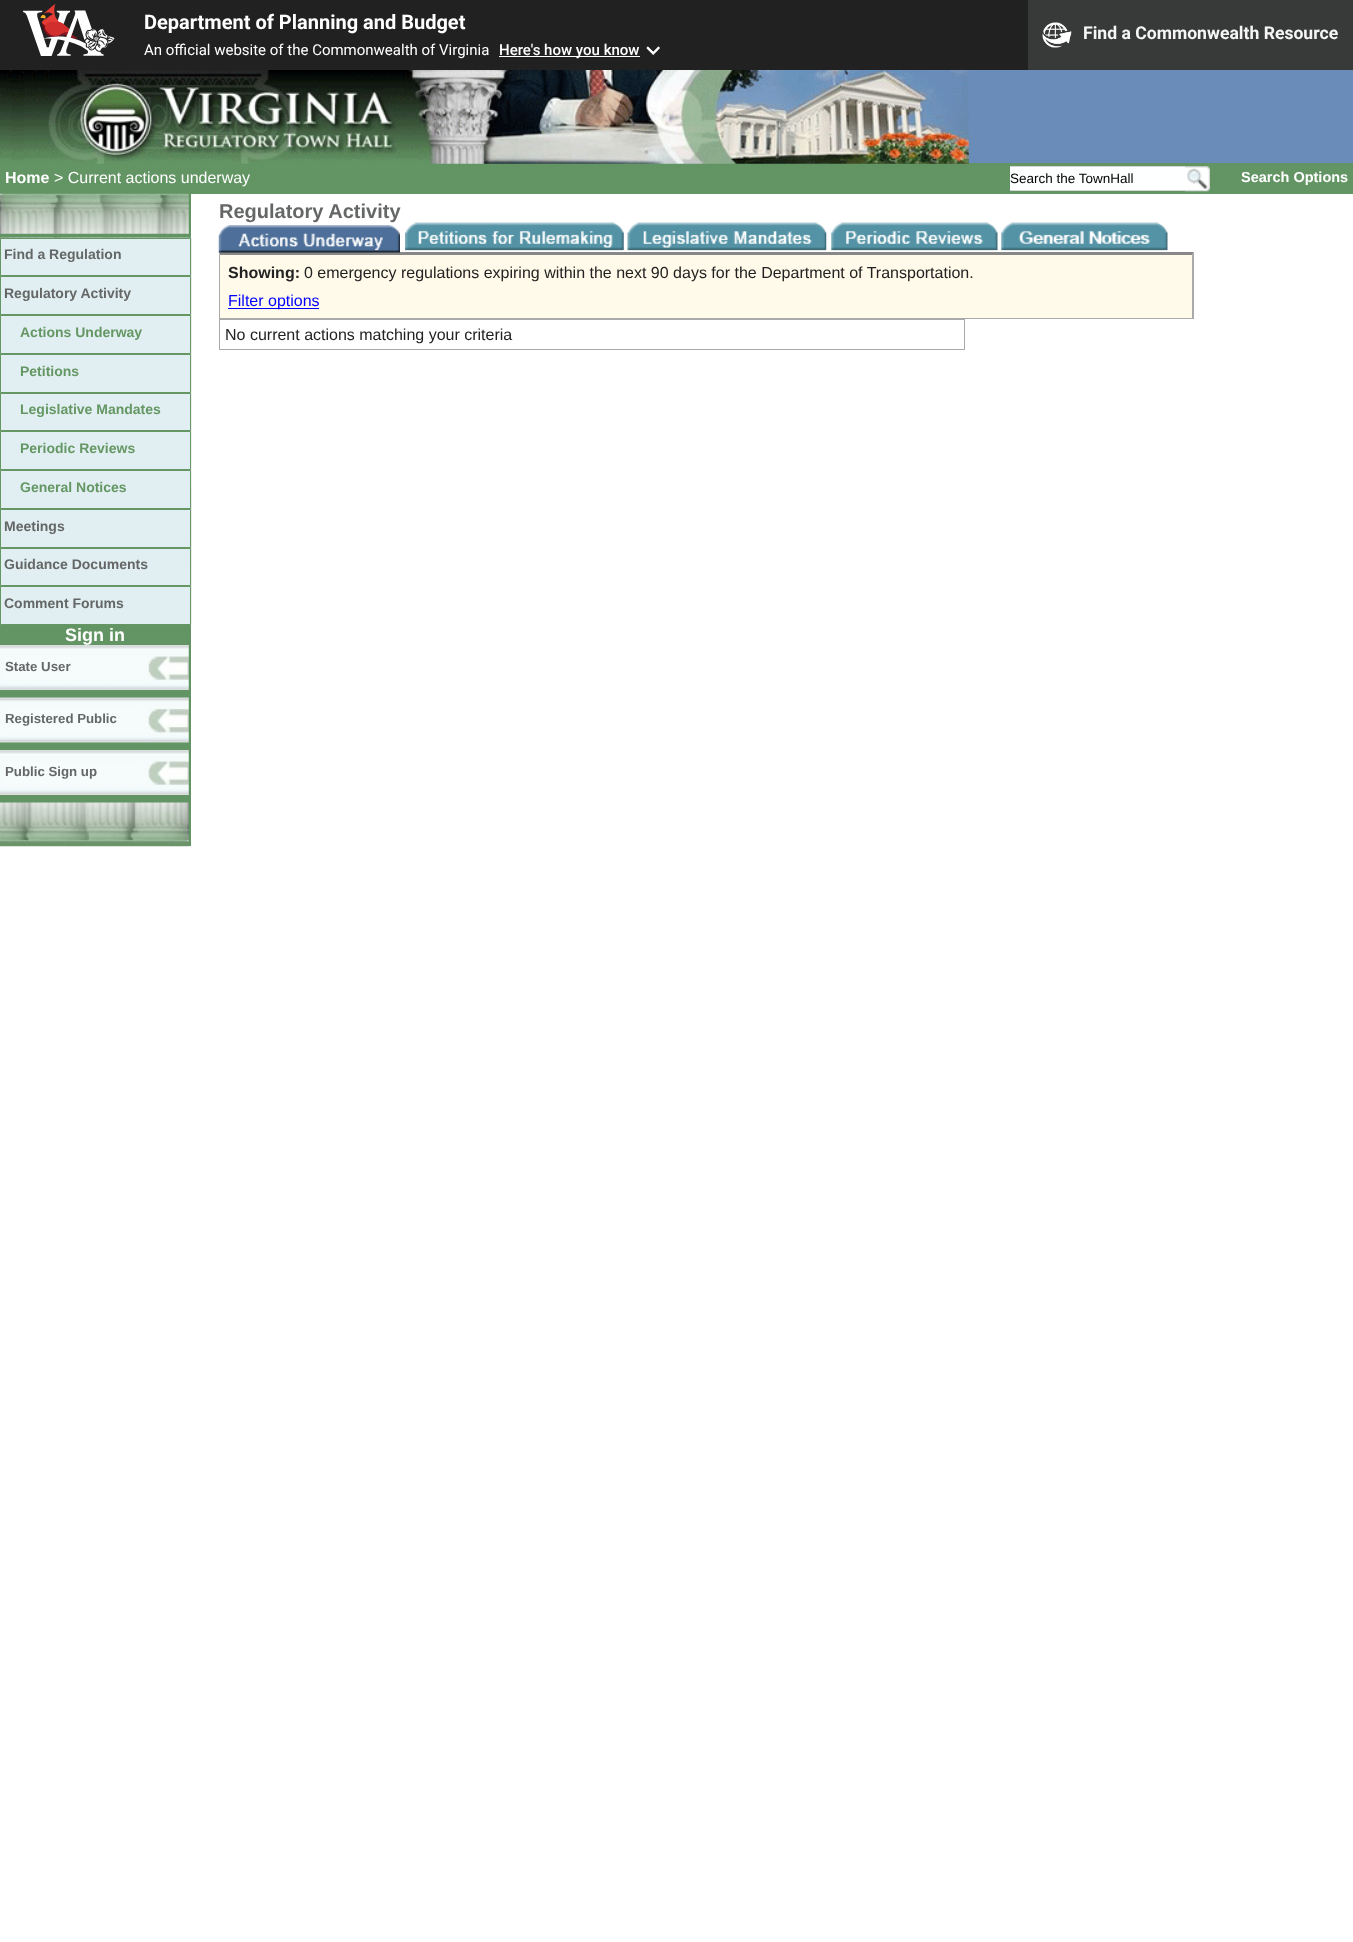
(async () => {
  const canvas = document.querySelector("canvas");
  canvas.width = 1353;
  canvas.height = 1942;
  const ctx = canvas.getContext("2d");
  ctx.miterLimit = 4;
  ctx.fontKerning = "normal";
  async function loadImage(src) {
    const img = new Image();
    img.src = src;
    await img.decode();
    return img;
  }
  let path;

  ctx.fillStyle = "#ffffff";
  ctx.fillRect(0, 0, 1353, 1942);
  ctx.fillStyle = "#212121";
  ctx.fillRect(0, 0, 1028, 70);
  ctx.drawImage(await loadImage("img/1.png"), 23, 4, 92, 52);
  ctx.fillStyle = "#ffffff";
  ctx.fillRect(499, 56, 141, 1);
  ctx.drawImage(await loadImage("img/2.png"), 646, 46, 14, 9);
  ctx.fillStyle = "#383939";
  ctx.fillRect(1028, 0, 325, 70);
  ctx.drawImage(await loadImage("img/3.png"), 1042, 22, 30, 26);
  ctx.fillStyle = "#698cb8";
  ctx.fillRect(968, 70, 385, 93);
  ctx.fillStyle = "#639564";
  ctx.fillRect(0, 163, 1353, 31);
  ctx.drawImage(await loadImage("img/4.png"), 0, 70, 969, 94);
  for (const [x, y, w, h, color] of [
    [1010, 167, 175, 23, "#feffff"],
    [1010, 166, 175, 1, "#d5d5d5"],
    [1010, 190, 175, 1, "#d5d5d5"],
  ]) {
    ctx.fillStyle = color;
    ctx.fillRect(x, y, w, h);
  }
  ctx.drawImage(await loadImage("img/5.png"), 1185, 166, 25, 26);
  ctx.fillStyle = "#639564";
  ctx.fillRect(0, 194, 191, 652);
  ctx.drawImage(await loadImage("img/6.png"), 0, 193, 189, 41);
  ctx.drawImage(await loadImage("img/7.png"), 0, 237, 192, 388);
  ctx.fillStyle = "#e1eff2";
  ctx.beginPath();
  ctx.rect(0.5, 238.5, 190, 37);
  ctx.fill();
  ctx.strokeStyle = "#659764";
  ctx.stroke();
  ctx.beginPath();
  ctx.rect(0.5, 276.5, 190, 38);
  ctx.fill();
  ctx.stroke();
  ctx.beginPath();
  ctx.rect(0.5, 315.5, 190, 38);
  ctx.fill();
  ctx.stroke();
  ctx.beginPath();
  ctx.rect(0.5, 354.5, 190, 38);
  ctx.fill();
  ctx.stroke();
  ctx.beginPath();
  ctx.rect(0.5, 393.5, 190, 37);
  ctx.fill();
  ctx.stroke();
  ctx.beginPath();
  ctx.rect(0.5, 431.5, 190, 38);
  ctx.fill();
  ctx.stroke();
  ctx.beginPath();
  ctx.rect(0.5, 470.5, 190, 38);
  ctx.fill();
  ctx.stroke();
  ctx.beginPath();
  ctx.rect(0.5, 509.5, 190, 38);
  ctx.fill();
  ctx.stroke();
  ctx.beginPath();
  ctx.rect(0.5, 548.5, 190, 37);
  ctx.fill();
  ctx.stroke();
  ctx.beginPath();
  ctx.rect(0.5, 586.5, 190, 38);
  ctx.fill();
  ctx.stroke();
  ctx.drawImage(await loadImage("img/8.png"), 0, 645, 189, 45);
  ctx.drawImage(await loadImage("img/9.png"), 0, 697, 189, 46);
  ctx.drawImage(await loadImage("img/10.png"), 0, 750, 189, 45);
  ctx.drawImage(await loadImage("img/11.png"), 0, 802, 189, 45);
  ctx.fillStyle = "#888888";
  path = new Path2D("M219 252H1194L1192 255H220Z");
  ctx.fill(path);
  ctx.fillStyle = "#aaaaaa";
  path = new Path2D("M1194 252V319L1192 318V255Z");
  ctx.fill(path);
  ctx.fillRect(219, 318, 975, 1);
  path = new Path2D("M219 319V252L220 255V318Z");
  ctx.fill(path);
  ctx.drawImage(await loadImage("img/12.png"), 218, 225, 182, 28);
  ctx.drawImage(await loadImage("img/13.png"), 405, 222, 219, 29);
  ctx.drawImage(await loadImage("img/14.png"), 627, 222, 200, 29);
  ctx.drawImage(await loadImage("img/15.png"), 831, 222, 167, 29);
  ctx.drawImage(await loadImage("img/16.png"), 1001, 222, 167, 29);
  for (const [x, y, w, h, color] of [
    [220, 255, 972, 63, "#fffaea"],
    [228, 308, 91, 1, "#0000ff"],
    [219, 319, 746, 1, "#aaaaaa"],
    [964, 319, 1, 31, "#aaaaaa"],
    [219, 349, 746, 1, "#aaaaaa"],
    [219, 319, 1, 31, "#aaaaaa"],
  ]) {
    ctx.fillStyle = color;
    ctx.fillRect(x, y, w, h);
  }
  ctx.font = "bold 20px Roboto";
  ctx.fillStyle = "#ffffff";
  ctx.fillText("Department of Planning and Budget", 144, 29);
  ctx.font = "15px Roboto";
  ctx.fillText("An official website of the Commonwealth of Virginia", 144, 55);
  ctx.font = "500 15px Roboto";
  ctx.fillText("Here's how you know", 499, 55);
  ctx.font = "bold 17.6px Roboto";
  ctx.fillStyle = "#f6f6f6";
  ctx.fillText("Find a Commonwealth Resource", 1083, 39);
  ctx.font = "bold 16px Liberation Sans";
  ctx.fillStyle = "#ffffff";
  ctx.fillText("Home", 5, 183);
  ctx.font = "16px Liberation Sans";
  ctx.fillText("> Current actions underway", 54, 183);
  ctx.font = "13.5px Liberation Sans";
  ctx.fillStyle = "#000000";
  ctx.fillText("Search the TownHall", 1010, 183);
  ctx.font = "bold 14.5px Liberation Sans";
  ctx.fillStyle = "#ffffff";
  ctx.fillText("Search Options", 1241, 182);
  ctx.font = "bold 14px Liberation Sans";
  ctx.fillStyle = "#656766";
  ctx.fillText("Find a Regulation", 4, 259);
  ctx.fillText("Regulatory Activity", 4, 298);
  ctx.fillStyle = "#659764";
  for (const [text, x, y] of [
    ["Actions Underway", 20, 337],
    ["Petitions", 20, 376],
    ["Legislative Mandates", 20, 414],
    ["Periodic Reviews", 20, 453],
    ["General Notices", 20, 492],
  ]) {
    ctx.fillText(text, x, y);
  }
  ctx.fillStyle = "#656766";
  for (const [text, x, y] of [
    ["Meetings", 4, 531],
    ["Guidance Documents", 4, 569],
    ["Comment Forums", 4, 608],
  ]) {
    ctx.fillText(text, x, y);
  }
  ctx.font = "bold 18px Liberation Sans";
  ctx.fillStyle = "#ffffff";
  ctx.fillText("Sign in", 65, 641);
  ctx.font = "bold 13.25px Liberation Sans";
  ctx.fillStyle = "#656766";
  for (const [text, x, y] of [
    ["State User", 5, 671],
    ["Registered Public", 5, 723],
    ["Public Sign up", 5, 776],
  ]) {
    ctx.fillText(text, x, y);
  }
  ctx.font = "bold 20px Liberation Sans";
  ctx.fillText("Regulatory Activity", 219, 218);
  ctx.font = "bold 16px Liberation Sans";
  ctx.fillStyle = "#222222";
  ctx.fillText("Showing:", 228, 278);
  ctx.font = "16px Liberation Sans";
  ctx.fillText("0 emergency regulations expiring within the next 90 days for the Department of Transportation.", 304, 278);
  ctx.fillStyle = "#0000ff";
  ctx.fillText("Filter options", 228, 306);
  ctx.fillStyle = "#222222";
  ctx.fillText("No current actions matching your criteria", 225, 340);
})();
